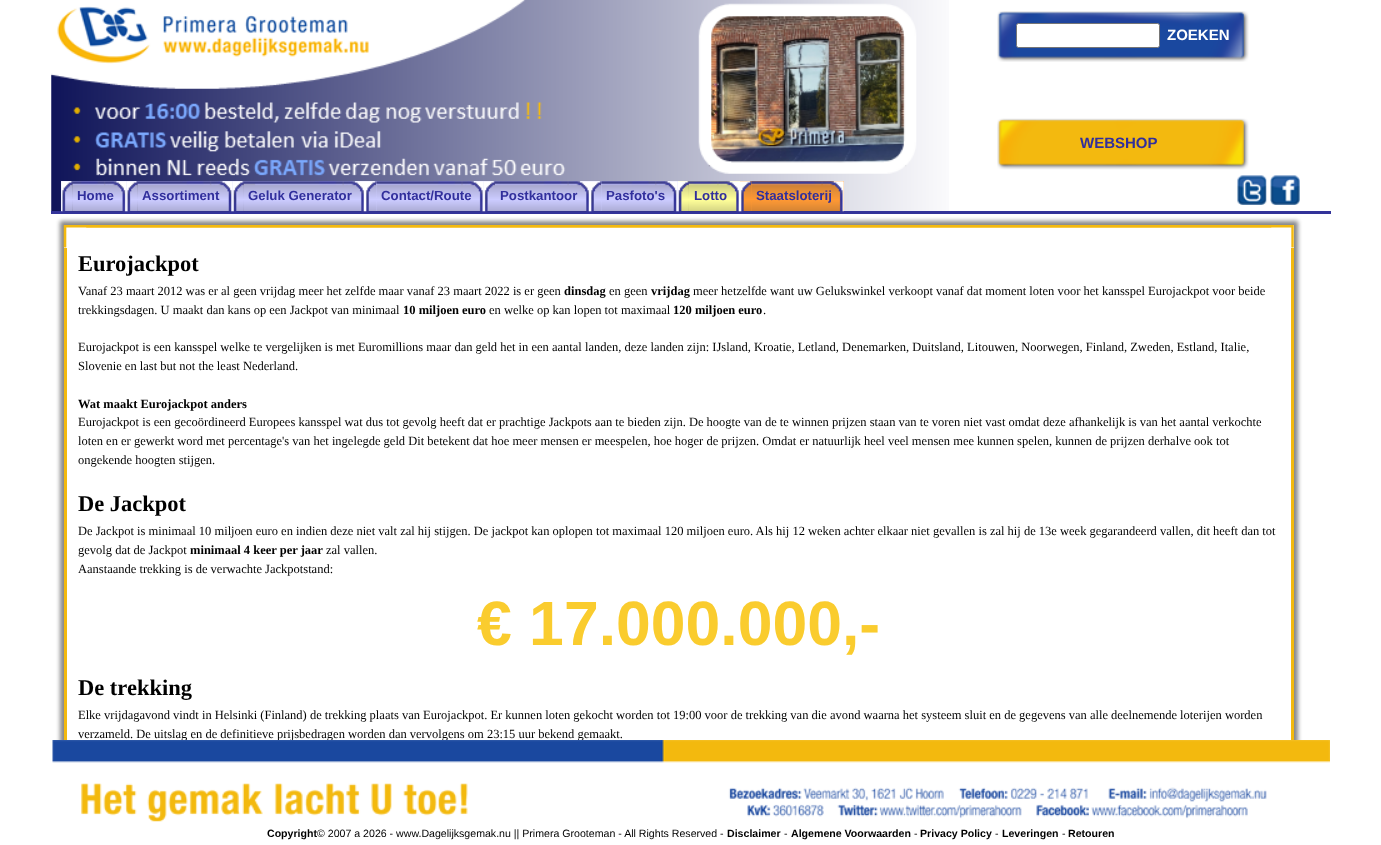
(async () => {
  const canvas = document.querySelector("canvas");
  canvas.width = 1381;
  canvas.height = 845;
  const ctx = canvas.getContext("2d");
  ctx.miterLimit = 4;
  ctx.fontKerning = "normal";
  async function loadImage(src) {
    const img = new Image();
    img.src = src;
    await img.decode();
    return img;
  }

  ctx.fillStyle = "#ffffff";
  ctx.fillRect(0, 0, 1381, 845);
  ctx.drawImage(await loadImage("img/1.png"), 51, 0, 898, 211);
  ctx.drawImage(await loadImage("img/2.png"), 997, 11, 252, 51);
  ctx.beginPath();
  ctx.roundRect(1016.5, 23.5, 143, 24, 2);
  ctx.fill();
  ctx.strokeStyle = "#767676";
  ctx.stroke();
  ctx.drawImage(await loadImage("img/3.png"), 997, 118, 252, 52);
  ctx.fillStyle = "#333399";
  ctx.fillRect(51, 211, 1280, 3);
  ctx.fillStyle = "#ccccff";
  ctx.fillRect(61, 181, 12, 30);
  ctx.drawImage(await loadImage("img/4.png"), 61, 181, 65, 31);
  ctx.fillRect(73, 181, 53, 30);
  ctx.drawImage(await loadImage("img/5.png"), 72, 181, 55, 31);
  ctx.fillRect(126, 181, 12, 30);
  ctx.drawImage(await loadImage("img/6.png"), 126, 181, 107, 31);
  ctx.fillRect(138, 181, 106, 30);
  ctx.drawImage(await loadImage("img/7.png"), 137, 181, 96, 31);
  ctx.drawImage(await loadImage("img/8.png"), 232, 181, 133, 31);
  ctx.fillRect(244, 181, 132, 30);
  ctx.drawImage(await loadImage("img/9.png"), 243, 181, 122, 31);
  ctx.drawImage(await loadImage("img/10.png"), 365, 181, 119, 31);
  ctx.fillRect(376, 181, 119, 30);
  ctx.drawImage(await loadImage("img/11.png"), 376, 181, 108, 31);
  ctx.drawImage(await loadImage("img/12.png"), 483, 181, 107, 31);
  ctx.fillRect(495, 181, 106, 30);
  ctx.drawImage(await loadImage("img/13.png"), 495, 181, 95, 31);
  ctx.drawImage(await loadImage("img/14.png"), 590, 181, 88, 31);
  ctx.fillRect(601, 181, 77, 30);
  ctx.drawImage(await loadImage("img/15.png"), 601, 181, 77, 31);
  ctx.fillStyle = "#ffff99";
  ctx.fillRect(678, 181, 11, 30);
  ctx.drawImage(await loadImage("img/16.png"), 677, 181, 63, 31);
  ctx.fillRect(689, 181, 51, 30);
  ctx.drawImage(await loadImage("img/17.png"), 688, 181, 52, 31);
  ctx.fillStyle = "#ff9933";
  ctx.fillRect(740, 181, 11, 30);
  ctx.drawImage(await loadImage("img/18.png"), 740, 181, 104, 31);
  ctx.fillRect(751, 181, 93, 30);
  ctx.drawImage(await loadImage("img/19.png"), 751, 181, 93, 31);
  ctx.drawImage(await loadImage("img/20.png"), 1237, 175, 30, 30);
  ctx.drawImage(await loadImage("img/21.png"), 1270, 175, 30, 30);
  ctx.save();
  ctx.beginPath();
  ctx.rect(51, 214, 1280, 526);
  ctx.clip();
  ctx.fillStyle = "#888888";
  ctx.filter = "blur(2px)";
  ctx.beginPath();
  ctx.rect(60, 221, 1238, 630);
  ctx.fill();
  ctx.filter = "none";
  ctx.restore();
  ctx.fillStyle = "#ffffff";
  ctx.fillRect(64, 225, 1230, 515);
  ctx.drawImage(await loadImage("img/22.png"), 63, 225, 1209, 23);
  ctx.drawImage(await loadImage("img/23.png"), 86, 225, 1208, 23);
  ctx.fillStyle = "#f3b90e";
  ctx.fillRect(1291, 248, 3, 492);
  ctx.fillRect(64, 248, 3, 492);
  ctx.drawImage(await loadImage("img/24.png"), 52, 740, 1278, 82);
  ctx.font = "bold 15px Liberation Sans";
  ctx.fillStyle = "#ffffff";
  ctx.fillText("ZOEKEN", 1167, 40);
  ctx.fillStyle = "#312f9c";
  ctx.fillText("WEBSHOP", 1080, 148);
  ctx.font = "bold 13.25px Liberation Sans";
  for (const [text, x, y] of [
    ["Home", 77, 200],
    ["Assortiment", 142, 200],
    ["Geluk Generator", 248, 200],
    ["Contact/Route", 381, 200],
    ["Postkantoor", 500, 200],
    ["Pasfoto's", 606, 200],
    ["Lotto", 694, 200],
    ["Staatsloterij", 756, 200],
  ]) {
    ctx.fillText(text, x, y);
  }
  ctx.font = "bold 22.5px Liberation Serif";
  ctx.fillStyle = "#000000";
  ctx.fillText("Eurojackpot", 78, 271);
  ctx.font = "12.5px Liberation Serif";
  ctx.fillText("Vanaf 23 maart 2012 was er al geen vrijdag meer het zelfde maar vanaf 23 maart 2022 is er geen", 78, 295);
  ctx.font = "bold 12.5px Liberation Serif";
  ctx.fillText("dinsdag", 564, 295);
  ctx.font = "12.5px Liberation Serif";
  ctx.fillText("en geen", 609, 295);
  ctx.font = "bold 12.5px Liberation Serif";
  ctx.fillText("vrijdag", 651, 295);
  ctx.font = "12.5px Liberation Serif";
  ctx.fillText("meer hetzelfde want uw Gelukswinkel verkoopt vanaf dat moment loten voor het kansspel Eurojackpot voor beide", 693, 295);
  ctx.fillText("trekkingsdagen. U maakt dan kans op een Jackpot van minimaal", 78, 314);
  ctx.font = "bold 12.5px Liberation Serif";
  ctx.fillText("10 miljoen euro", 403, 314);
  ctx.font = "12.5px Liberation Serif";
  ctx.fillText("en welke op kan lopen tot maximaal", 489, 314);
  ctx.font = "bold 12.5px Liberation Serif";
  ctx.fillText("120 miljoen euro", 673, 314);
  ctx.font = "12.5px Liberation Serif";
  for (const [text, x, y] of [
    [".", 763, 314],
    ["Eurojackpot is een kansspel welke te vergelijken is met Euromillions maar dan geld het in een aantal landen, deze landen zijn: IJsland, Kroatie, Letland, Denemarken, Duitsland, Litouwen, Noorwegen, Finland, Zweden, Estland, Italie,", 78, 351],
    ["Slovenie en last but not the least Nederland.", 78, 370],
  ]) {
    ctx.fillText(text, x, y);
  }
  ctx.font = "bold 12.5px Liberation Serif";
  ctx.fillText("Wat maakt Eurojackpot anders", 78, 408);
  ctx.font = "12.5px Liberation Serif";
  for (const [text, x, y] of [
    ["Eurojackpot is een gecoördineerd Europees kansspel wat dus tot gevolg heeft dat er prachtige Jackpots aan te bieden zijn. De hoogte van de te winnen prijzen staan van te voren niet vast omdat deze afhankelijk is van het aantal verkochte", 78, 426],
    ["loten en er gewerkt word met percentage's van het ingelegde geld Dit betekent dat hoe meer mensen er meespelen, hoe hoger de prijzen. Omdat er natuurlijk heel veel mensen mee kunnen spelen, kunnen de prijzen derhalve ook tot", 78, 445],
    ["ongekende hoogten stijgen.", 78, 464],
  ]) {
    ctx.fillText(text, x, y);
  }
  ctx.font = "bold 22.5px Liberation Serif";
  ctx.fillText("De Jackpot", 78, 511);
  ctx.font = "12.5px Liberation Serif";
  ctx.fillText("De Jackpot is minimaal 10 miljoen euro en indien deze niet valt zal hij stijgen. De jackpot kan oplopen tot maximaal 120 miljoen euro. Als hij 12 weken achter elkaar niet gevallen is zal hij de 13e week gegarandeerd vallen, dit heeft dan tot", 78, 535);
  ctx.fillText("gevolg dat de Jackpot", 78, 554);
  ctx.font = "bold 12.5px Liberation Serif";
  ctx.fillText("minimaal 4 keer per jaar", 190, 554);
  ctx.font = "12.5px Liberation Serif";
  ctx.fillText("zal vallen.", 326, 554);
  ctx.fillText("Aanstaande trekking is de verwachte Jackpotstand:", 78, 573);
  ctx.font = "bold 62.5px Liberation Sans";
  ctx.fillStyle = "#facc2e";
  ctx.fillText("€ 17.000.000,-", 477, 645);
  ctx.font = "bold 22.5px Liberation Serif";
  ctx.fillStyle = "#000000";
  ctx.fillText("De trekking", 78, 695);
  ctx.font = "12.5px Liberation Serif";
  ctx.fillText("Elke vrijdagavond vindt in Helsinki (Finland) de trekking plaats van Eurojackpot. Er kunnen loten gekocht worden tot 19:00 voor de trekking van die avond waarna het systeem sluit en de gegevens van alle deelnemende loterijen worden", 78, 719);
  ctx.save();
  ctx.beginPath();
  ctx.rect(66, 248, 1225, 492);
  ctx.clip();
  ctx.fillText("verzameld. De uitslag en de definitieve prijsbedragen worden dan vervolgens om 23:15 uur bekend gemaakt.", 78, 738);
  ctx.restore();
  ctx.font = "bold 10.6px Liberation Sans";
  ctx.fillText("Copyright", 267, 837);
  ctx.font = "10.6px Liberation Sans";
  ctx.fillText("© 2007 a 2026 - www.Dagelijksgemak.nu || Primera Grooteman - All Rights Reserved -", 317, 837);
  ctx.font = "bold 10.6px Liberation Sans";
  ctx.fillText("Disclaimer", 727, 837);
  ctx.font = "10.6px Liberation Sans";
  ctx.fillText("-", 784, 837);
  ctx.font = "bold 10.6px Liberation Sans";
  ctx.fillText("Algemene Voorwaarden", 791, 837);
  ctx.font = "10.6px Liberation Sans";
  ctx.fillText("-", 914, 837);
  ctx.font = "bold 10.6px Liberation Sans";
  ctx.fillText("Privacy Policy", 920, 837);
  ctx.font = "10.6px Liberation Sans";
  ctx.fillText("-", 995, 837);
  ctx.font = "bold 10.6px Liberation Sans";
  ctx.fillText("Leveringen", 1002, 837);
  ctx.font = "10.6px Liberation Sans";
  ctx.fillText("-", 1062, 837);
  ctx.font = "bold 10.6px Liberation Sans";
  ctx.fillText("Retouren", 1068, 837);
})();
